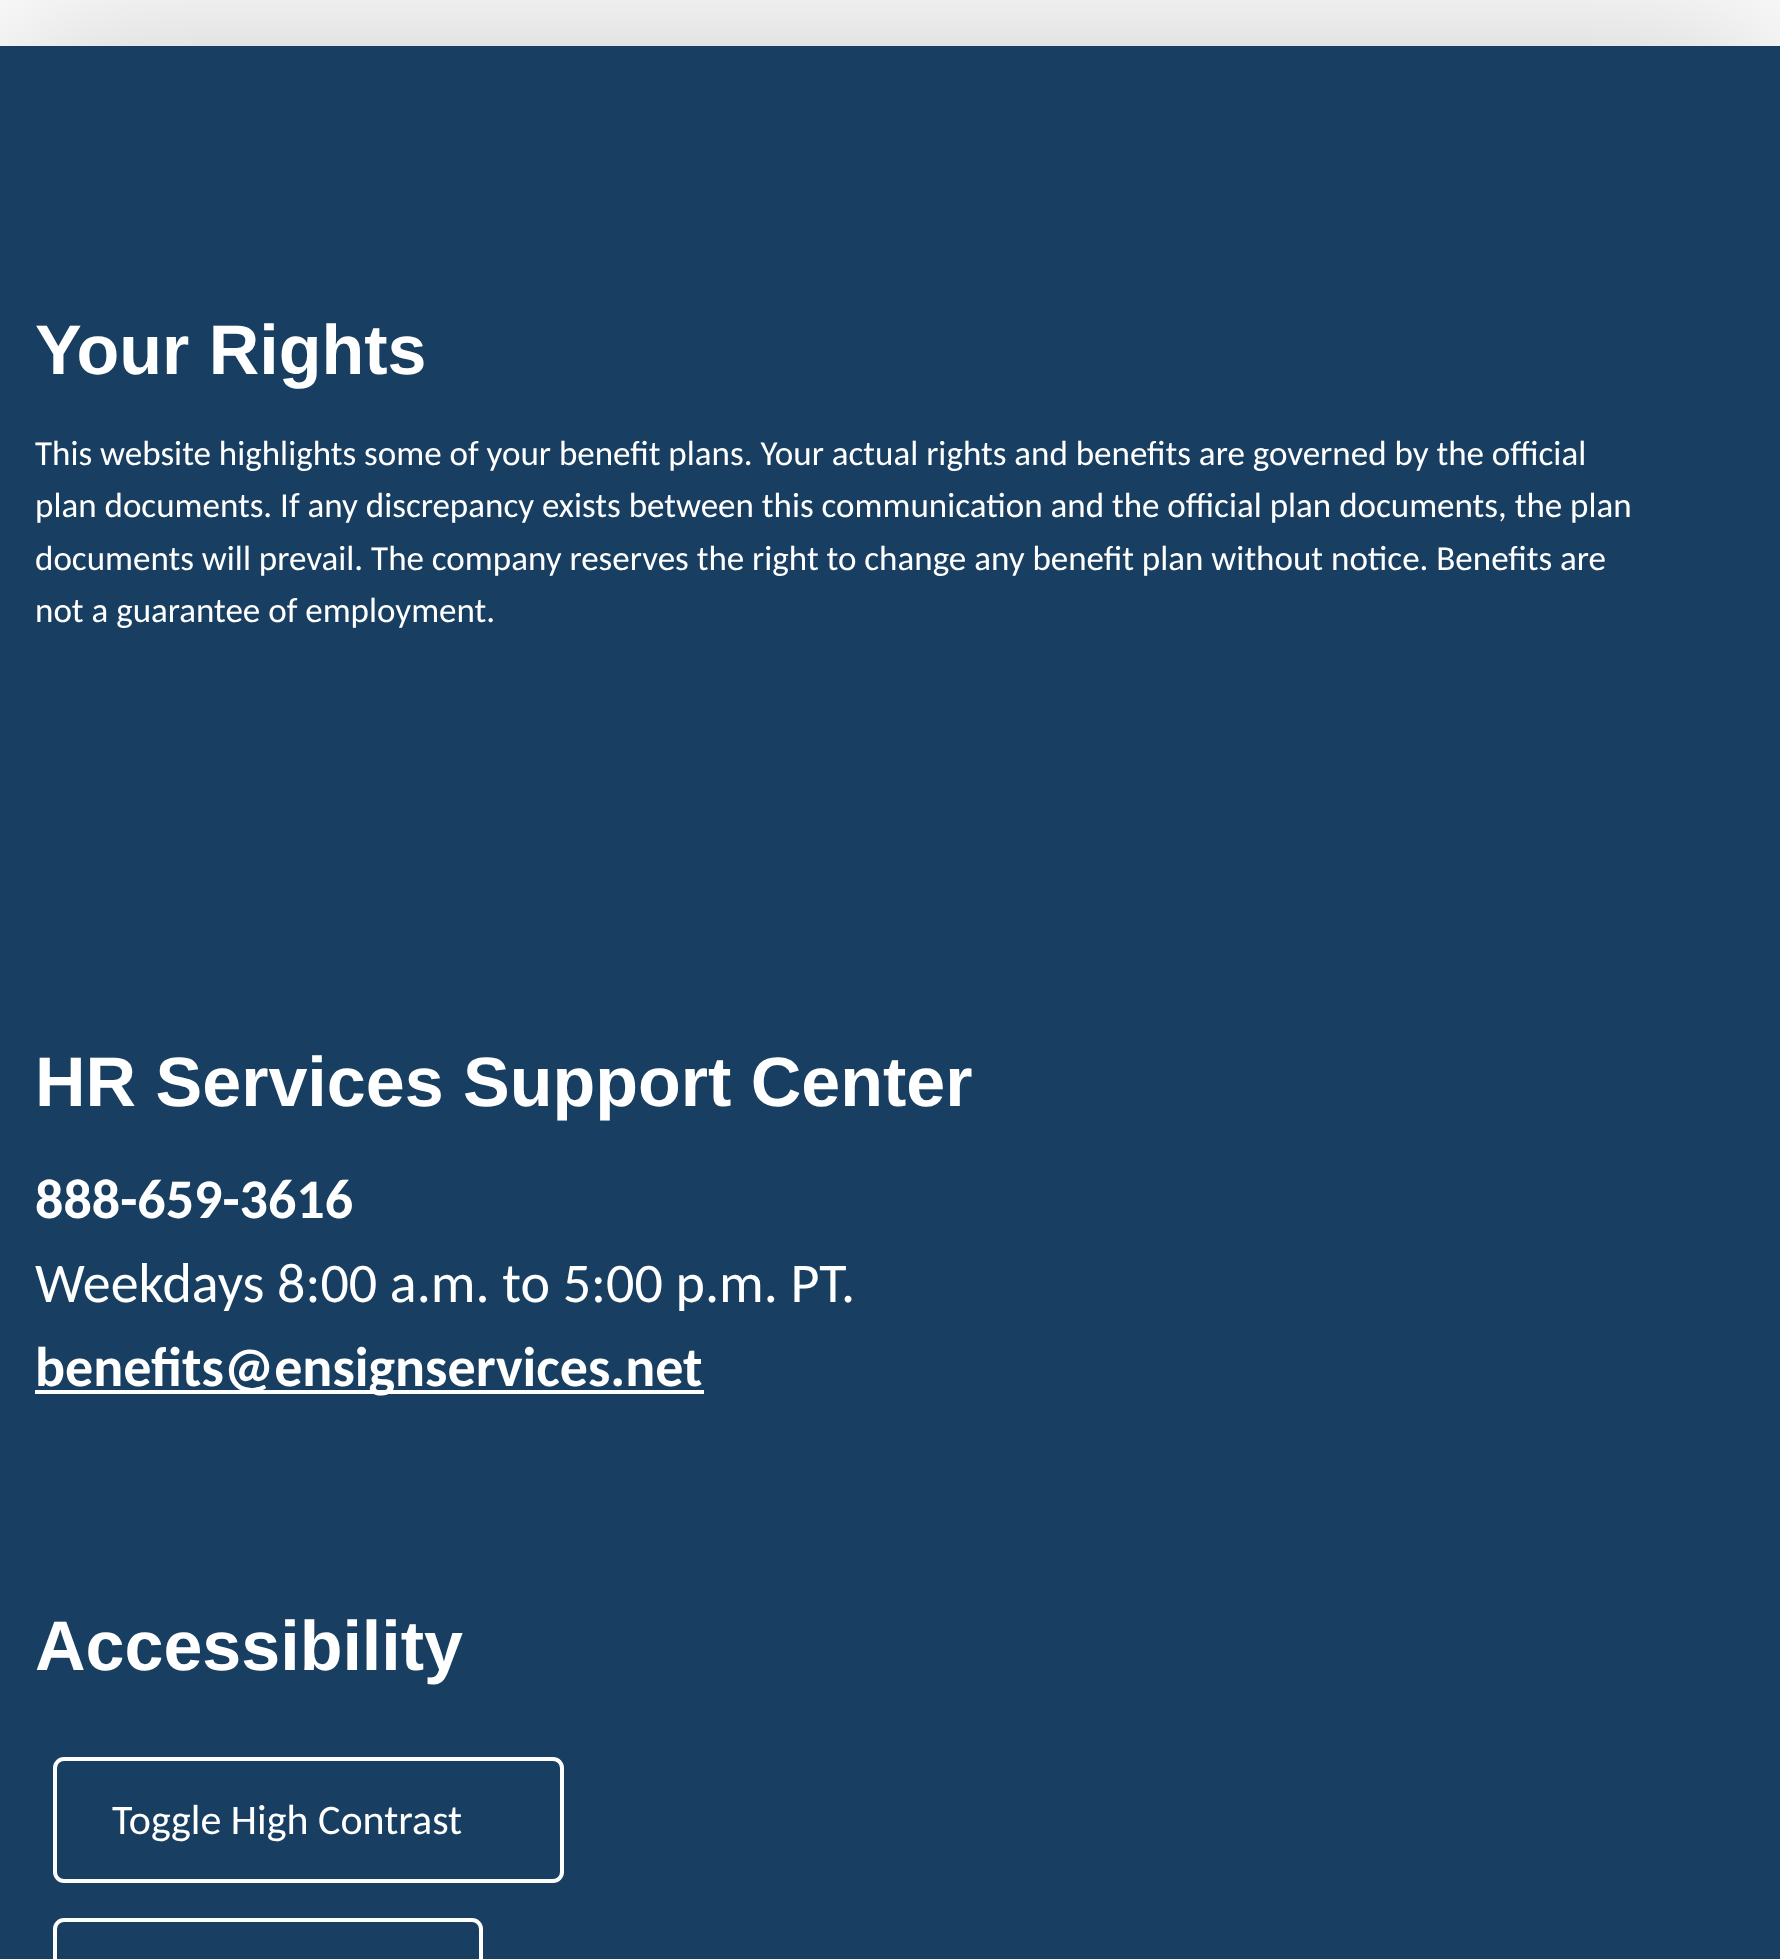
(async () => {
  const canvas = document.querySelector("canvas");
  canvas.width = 1780;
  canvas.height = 1959;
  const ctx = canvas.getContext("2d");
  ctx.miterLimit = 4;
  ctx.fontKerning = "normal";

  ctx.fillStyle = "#ffffff";
  ctx.fillRect(0, 0, 1780, 1959);
  ctx.fillStyle = "rgba(0, 0, 0, 0.2)";
  ctx.filter = "blur(91px)";
  ctx.beginPath();
  ctx.rect(0, 39, 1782, 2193);
  ctx.fill();
  ctx.filter = "none";
  ctx.fillStyle = "#183f61";
  ctx.fillRect(0, 46, 1780, 1913);
  ctx.fillStyle = "#ffffff";
  ctx.fillRect(35, 1390, 669, 4);
  ctx.beginPath();
  ctx.roundRect(55, 1759, 507, 122, 9);
  ctx.strokeStyle = "#ffffff";
  ctx.lineWidth = 4;
  ctx.stroke();
  ctx.beginPath();
  ctx.roundRect(55, 1920, 426, 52, 9);
  ctx.stroke();
  ctx.font = "bold 70px Liberation Sans";
  ctx.fillText("Your Rights", 35, 374);
  ctx.font = "35px Carlito";
  for (const [text, x, y] of [
    ["This website highlights some of your benefit plans. Your actual rights and benefits are governed by the official", 35, 465],
    ["plan documents. If any discrepancy exists between this communication and the official plan documents, the plan", 35, 517],
    ["documents will prevail. The company reserves the right to change any benefit plan without notice. Benefits are", 35, 570],
    ["not a guarantee of employment.", 35, 622],
  ]) {
    ctx.fillText(text, x, y);
  }
  ctx.font = "bold 70px Liberation Sans";
  ctx.fillText("HR Services Support Center", 35, 1106);
  ctx.font = "bold 56px Carlito";
  ctx.fillText("888-659-3616", 35, 1218);
  ctx.font = "56px Carlito";
  ctx.fillText("Weekdays 8:00 a.m. to 5:00 p.m. PT.", 35, 1302);
  ctx.font = "bold 56px Carlito";
  ctx.fillText("benefits@ensignservices.net", 35, 1386);
  ctx.font = "bold 70px Liberation Sans";
  ctx.fillText("Accessibility", 35, 1670);
  ctx.font = "42px Carlito";
  ctx.fillText("Toggle High Contrast", 112, 1834);
})();
